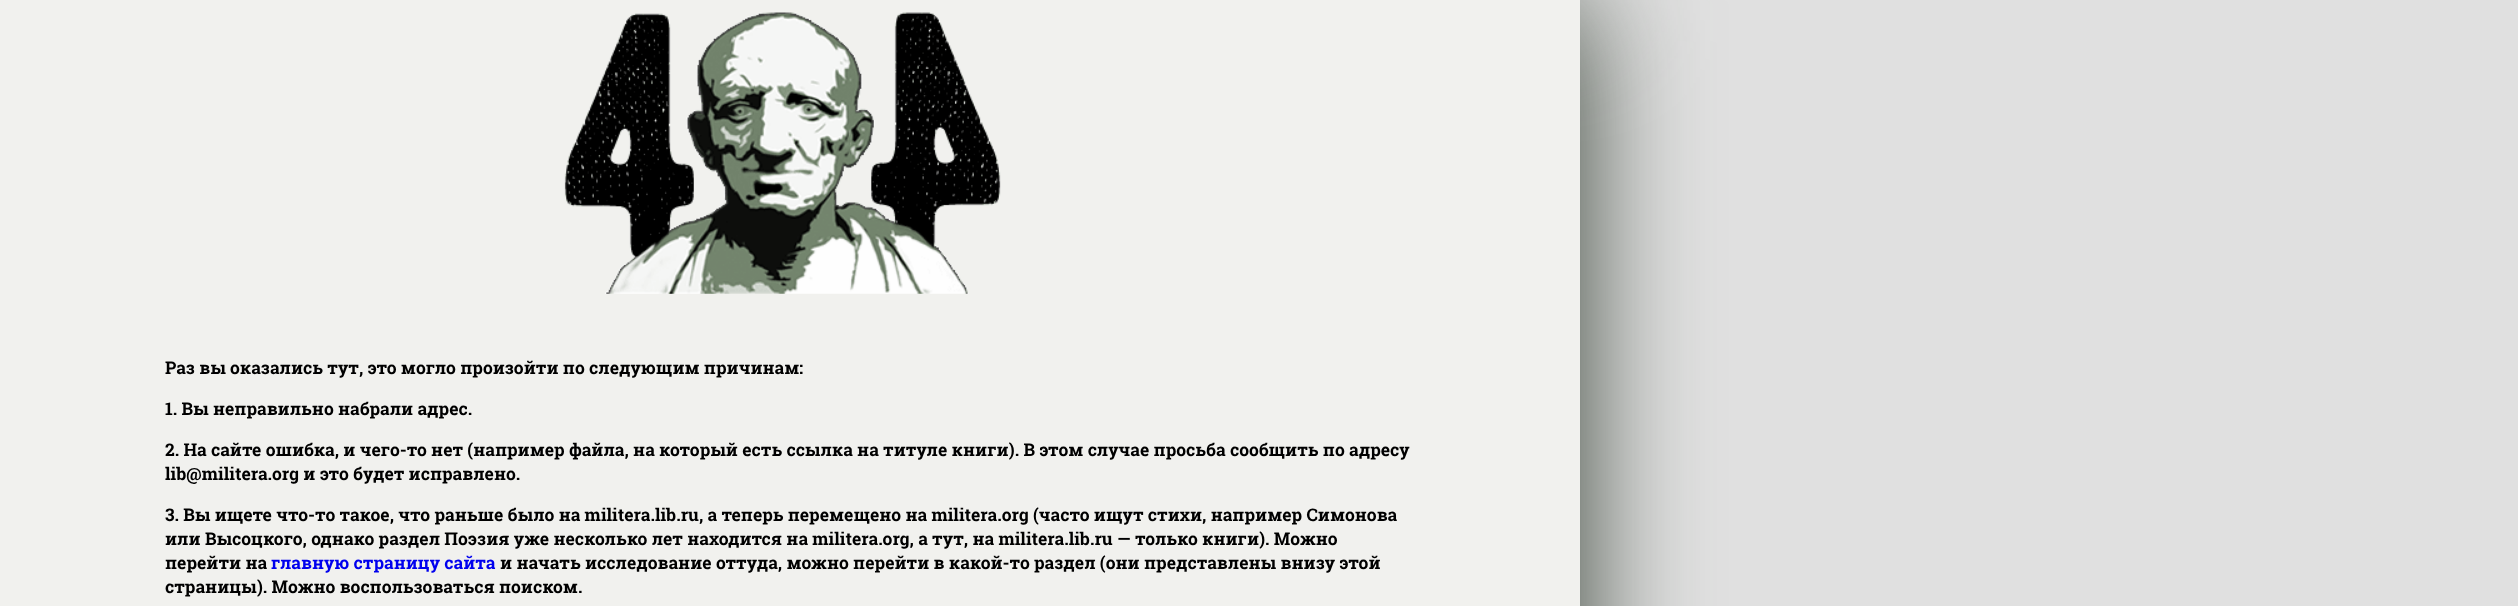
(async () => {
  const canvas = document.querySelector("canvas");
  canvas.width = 2518;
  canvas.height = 606;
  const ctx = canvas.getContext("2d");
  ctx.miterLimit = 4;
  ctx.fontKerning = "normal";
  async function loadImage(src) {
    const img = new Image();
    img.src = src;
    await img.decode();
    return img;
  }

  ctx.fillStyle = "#e0e0e0";
  ctx.fillRect(0, 0, 2518, 606);
  ctx.fillStyle = "#333e32";
  ctx.filter = "blur(62.5px)";
  ctx.beginPath();
  ctx.roundRect(0, 0, 1580, 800, 6);
  ctx.fill();
  ctx.filter = "none";
  ctx.strokeStyle = "#f1f1ee";
  ctx.lineWidth = 9;
  ctx.strokeRect(4.5, 4.5, 1571, 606);
  ctx.fillStyle = "#f1f1ee";
  ctx.fillRect(9, 9, 1562, 597);
  ctx.drawImage(await loadImage("img/1.png"), 564, 12, 437, 282);
  ctx.font = "bold 17.5px Roboto Slab";
  ctx.fillStyle = "#000000";
  for (const [text, x, y] of [
    ["Раз вы оказались тут, это могло произойти по следующим причинам:", 165, 374],
    ["1. Вы неправильно набрали адрес.", 165, 415],
    ["2. На сайте ошибка, и чего-то нет (например файла, на который есть ссылка на титуле книги). В этом случае просьба сообщить по адресу", 165, 456],
    ["lib@militera.org и это будет исправлено.", 165, 480],
    ["3. Вы ищете что-то такое, что раньше было на militera.lib.ru, а теперь перемещено на militera.org (часто ищут стихи, например Симонова", 165, 521],
    ["или Высоцкого, однако раздел Поэзия уже несколько лет находится на militera.org, а тут, на militera.lib.ru — только книги). Можно", 165, 545],
    ["перейти на", 165, 569],
  ]) {
    ctx.fillText(text, x, y);
  }
  ctx.fillStyle = "#0000ee";
  ctx.fillText("главную страницу сайта", 271, 569);
  ctx.fillStyle = "#000000";
  ctx.fillText("и начать исследование оттуда, можно перейти в какой-то раздел (они представлены внизу этой", 500, 569);
  ctx.fillText("страницы). Можно воспользоваться поиском.", 165, 593);
})();
